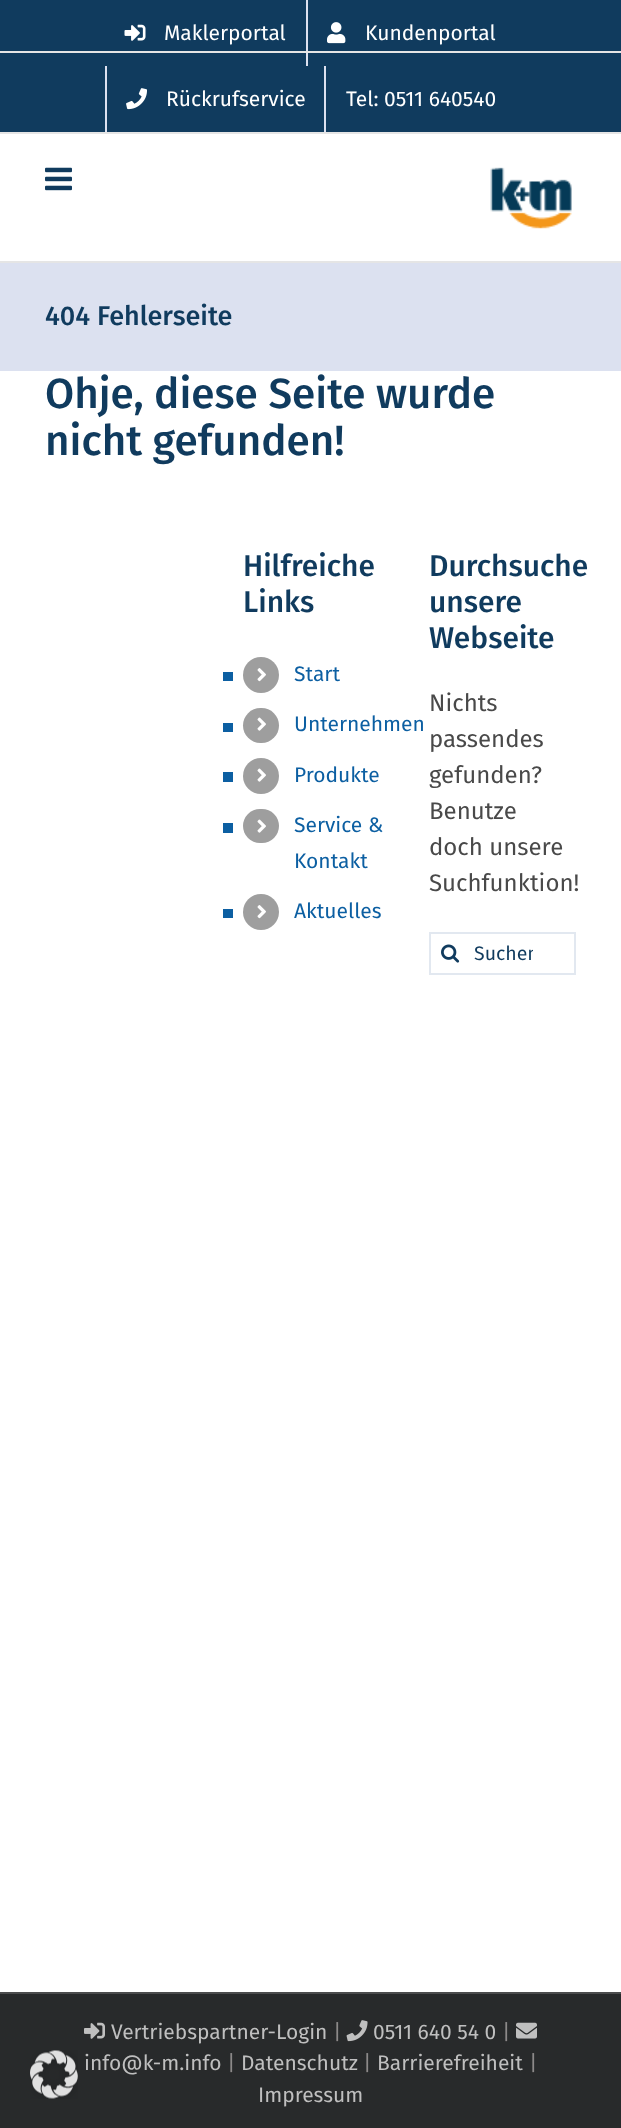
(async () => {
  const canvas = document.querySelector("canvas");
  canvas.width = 621;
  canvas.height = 2128;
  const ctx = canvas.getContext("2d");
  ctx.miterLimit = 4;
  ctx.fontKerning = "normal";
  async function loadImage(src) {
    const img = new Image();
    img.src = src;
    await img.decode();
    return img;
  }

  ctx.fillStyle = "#ffffff";
  ctx.fillRect(0, 0, 621, 2128);
  ctx.fillStyle = "#103b5e";
  ctx.fillRect(0, 0, 621, 132);
  ctx.fillStyle = "#e5e5e5";
  ctx.fillRect(0, 132, 621, 2);
  ctx.drawImage(await loadImage("img/1.png"), 124, 24, 22, 17);
  ctx.fillStyle = "#dce1f0";
  ctx.fillRect(306, 0, 2, 66);
  ctx.drawImage(await loadImage("img/2.png"), 327, 22, 19, 22);
  ctx.fillStyle = "#e5e5e5";
  ctx.fillRect(0, 51, 621, 2);
  ctx.fillStyle = "#dce1f0";
  ctx.fillRect(105, 66, 2, 66);
  ctx.drawImage(await loadImage("img/3.png"), 126, 88, 21, 22);
  ctx.fillRect(324, 66, 2, 66);
  ctx.fillStyle = "#e5e5e5";
  ctx.fillRect(0, 261, 621, 2);
  ctx.drawImage(await loadImage("img/4.png"), 45, 167, 27, 24);
  ctx.drawImage(await loadImage("img/5.png"), 490, 167, 82, 62);
  ctx.fillStyle = "#dce1f0";
  ctx.fillRect(0, 263, 621, 108);
  ctx.fillStyle = "#0c5fa2";
  ctx.fillRect(223, 672, 10, 9);
  ctx.fillStyle = "#9e9e9e";
  ctx.beginPath();
  ctx.arc(261, 675, 18, 0, Math.PI * 2);
  ctx.fill();
  ctx.drawImage(await loadImage("img/6.png"), 257, 668, 9, 14);
  ctx.fillStyle = "#0c5fa2";
  ctx.fillRect(223, 723, 10, 9);
  ctx.fillStyle = "#9e9e9e";
  ctx.beginPath();
  ctx.roundRect(243, 708, 36, 35, 17.5);
  ctx.fill();
  ctx.drawImage(await loadImage("img/7.png"), 257, 717, 9, 14);
  ctx.fillStyle = "#0c5fa2";
  ctx.fillRect(223, 772, 10, 10);
  ctx.fillStyle = "#9e9e9e";
  ctx.beginPath();
  ctx.arc(261, 776, 18, 0, Math.PI * 2);
  ctx.fill();
  ctx.drawImage(await loadImage("img/7.png"), 257, 768, 9, 14);
  ctx.fillStyle = "#0c5fa2";
  ctx.fillRect(223, 823, 10, 10);
  ctx.fillStyle = "#9e9e9e";
  ctx.beginPath();
  ctx.roundRect(243, 809, 36, 34, 17);
  ctx.fill();
  ctx.drawImage(await loadImage("img/7.png"), 257, 819, 9, 14);
  ctx.fillStyle = "#0c5fa2";
  ctx.fillRect(223, 909, 10, 9);
  ctx.fillStyle = "#9e9e9e";
  ctx.beginPath();
  ctx.arc(261, 912, 18, 0, Math.PI * 2);
  ctx.fill();
  ctx.drawImage(await loadImage("img/6.png"), 257, 905, 9, 14);
  ctx.strokeStyle = "#e2e8f0";
  ctx.lineWidth = 2;
  ctx.strokeRect(430, 933, 145, 41);
  ctx.drawImage(await loadImage("img/8.png"), 441, 944, 19, 19);
  ctx.fillStyle = "#282a2b";
  ctx.fillRect(0, 1994, 621, 134);
  ctx.fillStyle = "#4b4c4d";
  ctx.fillRect(0, 1992, 621, 2);
  ctx.drawImage(await loadImage("img/9.png"), 84, 2022, 21, 17);
  ctx.drawImage(await loadImage("img/10.png"), 346, 2020, 22, 22);
  ctx.drawImage(await loadImage("img/11.png"), 516, 2022, 21, 17);
  ctx.drawImage(await loadImage("img/12.png"), 30, 2050, 48, 49);
  ctx.font = "21px Fira Sans";
  ctx.fillStyle = "#ffffff";
  for (const [text, x, y] of [
    ["Maklerportal", 164, 40],
    ["Kundenportal", 365, 40],
    ["Rückrufservice", 166, 106],
    ["Tel: 0511 640540", 346, 106],
  ]) {
    ctx.fillText(text, x, y);
  }
  ctx.font = "500 27px Fira Sans";
  ctx.fillStyle = "#103b5e";
  ctx.fillText("404 Fehlerseite", 45, 325);
  ctx.font = "500 42.25px Fira Sans";
  ctx.fillText("Ohje, diese Seite wurde", 45, 408);
  ctx.fillText("nicht gefunden!", 45, 455);
  ctx.font = "500 30px Fira Sans";
  ctx.fillText("Hilfreiche", 243, 576);
  ctx.fillText("Links", 243, 612);
  ctx.font = "21px Fira Sans";
  ctx.fillStyle = "#0c5fa2";
  for (const [text, x, y] of [
    ["Start", 294, 681],
    ["Unternehmen", 294, 731],
    ["Produkte", 294, 782],
    ["Service &", 294, 832],
    ["Kontakt", 294, 868],
    ["Aktuelles", 294, 918],
  ]) {
    ctx.fillText(text, x, y);
  }
  ctx.font = "500 30px Fira Sans";
  ctx.fillStyle = "#103b5e";
  for (const [text, x, y] of [
    ["Durchsuche", 429, 576],
    ["unsere", 429, 612],
    ["Webseite", 429, 648],
  ]) {
    ctx.fillText(text, x, y);
  }
  ctx.font = "24px Fira Sans";
  ctx.fillStyle = "#494949";
  for (const [text, x, y] of [
    ["Nichts", 429, 711],
    ["passendes", 429, 747],
    ["gefunden?", 429, 783],
    ["Benutze", 429, 819],
    ["doch unsere", 429, 855],
    ["Suchfunktion!", 429, 891],
  ]) {
    ctx.fillText(text, x, y);
  }
  ctx.save();
  ctx.beginPath();
  ctx.rect(474, 942, 59, 23);
  ctx.clip();
  ctx.font = "19.5px Fira Sans";
  ctx.fillStyle = "#103b5e";
  ctx.fillText("Suchen", 474, 960);
  ctx.restore();
  ctx.font = "21px Fira Sans";
  ctx.fillStyle = "#bfbfbf";
  ctx.fillText("Vertriebspartner-Login", 111, 2039);
  ctx.fillStyle = "#8c8989";
  ctx.fillText("|", 333, 2039);
  ctx.fillStyle = "#bfbfbf";
  ctx.fillText("0511 640 54 0", 373, 2039);
  ctx.fillStyle = "#8c8989";
  ctx.fillText("|", 502, 2039);
  ctx.fillStyle = "#bfbfbf";
  ctx.fillText("info@k-m.info", 84, 2070);
  ctx.fillStyle = "#8c8989";
  ctx.fillText("|", 227, 2070);
  ctx.fillStyle = "#bfbfbf";
  ctx.fillText("Datenschutz", 241, 2070);
  ctx.fillStyle = "#8c8989";
  ctx.fillText("|", 363, 2070);
  ctx.fillStyle = "#bfbfbf";
  ctx.fillText("Barrierefreiheit", 377, 2070);
  ctx.fillStyle = "#8c8989";
  ctx.fillText("|", 529, 2070);
  ctx.fillStyle = "#bfbfbf";
  ctx.fillText("Impressum", 258, 2102);
})();
